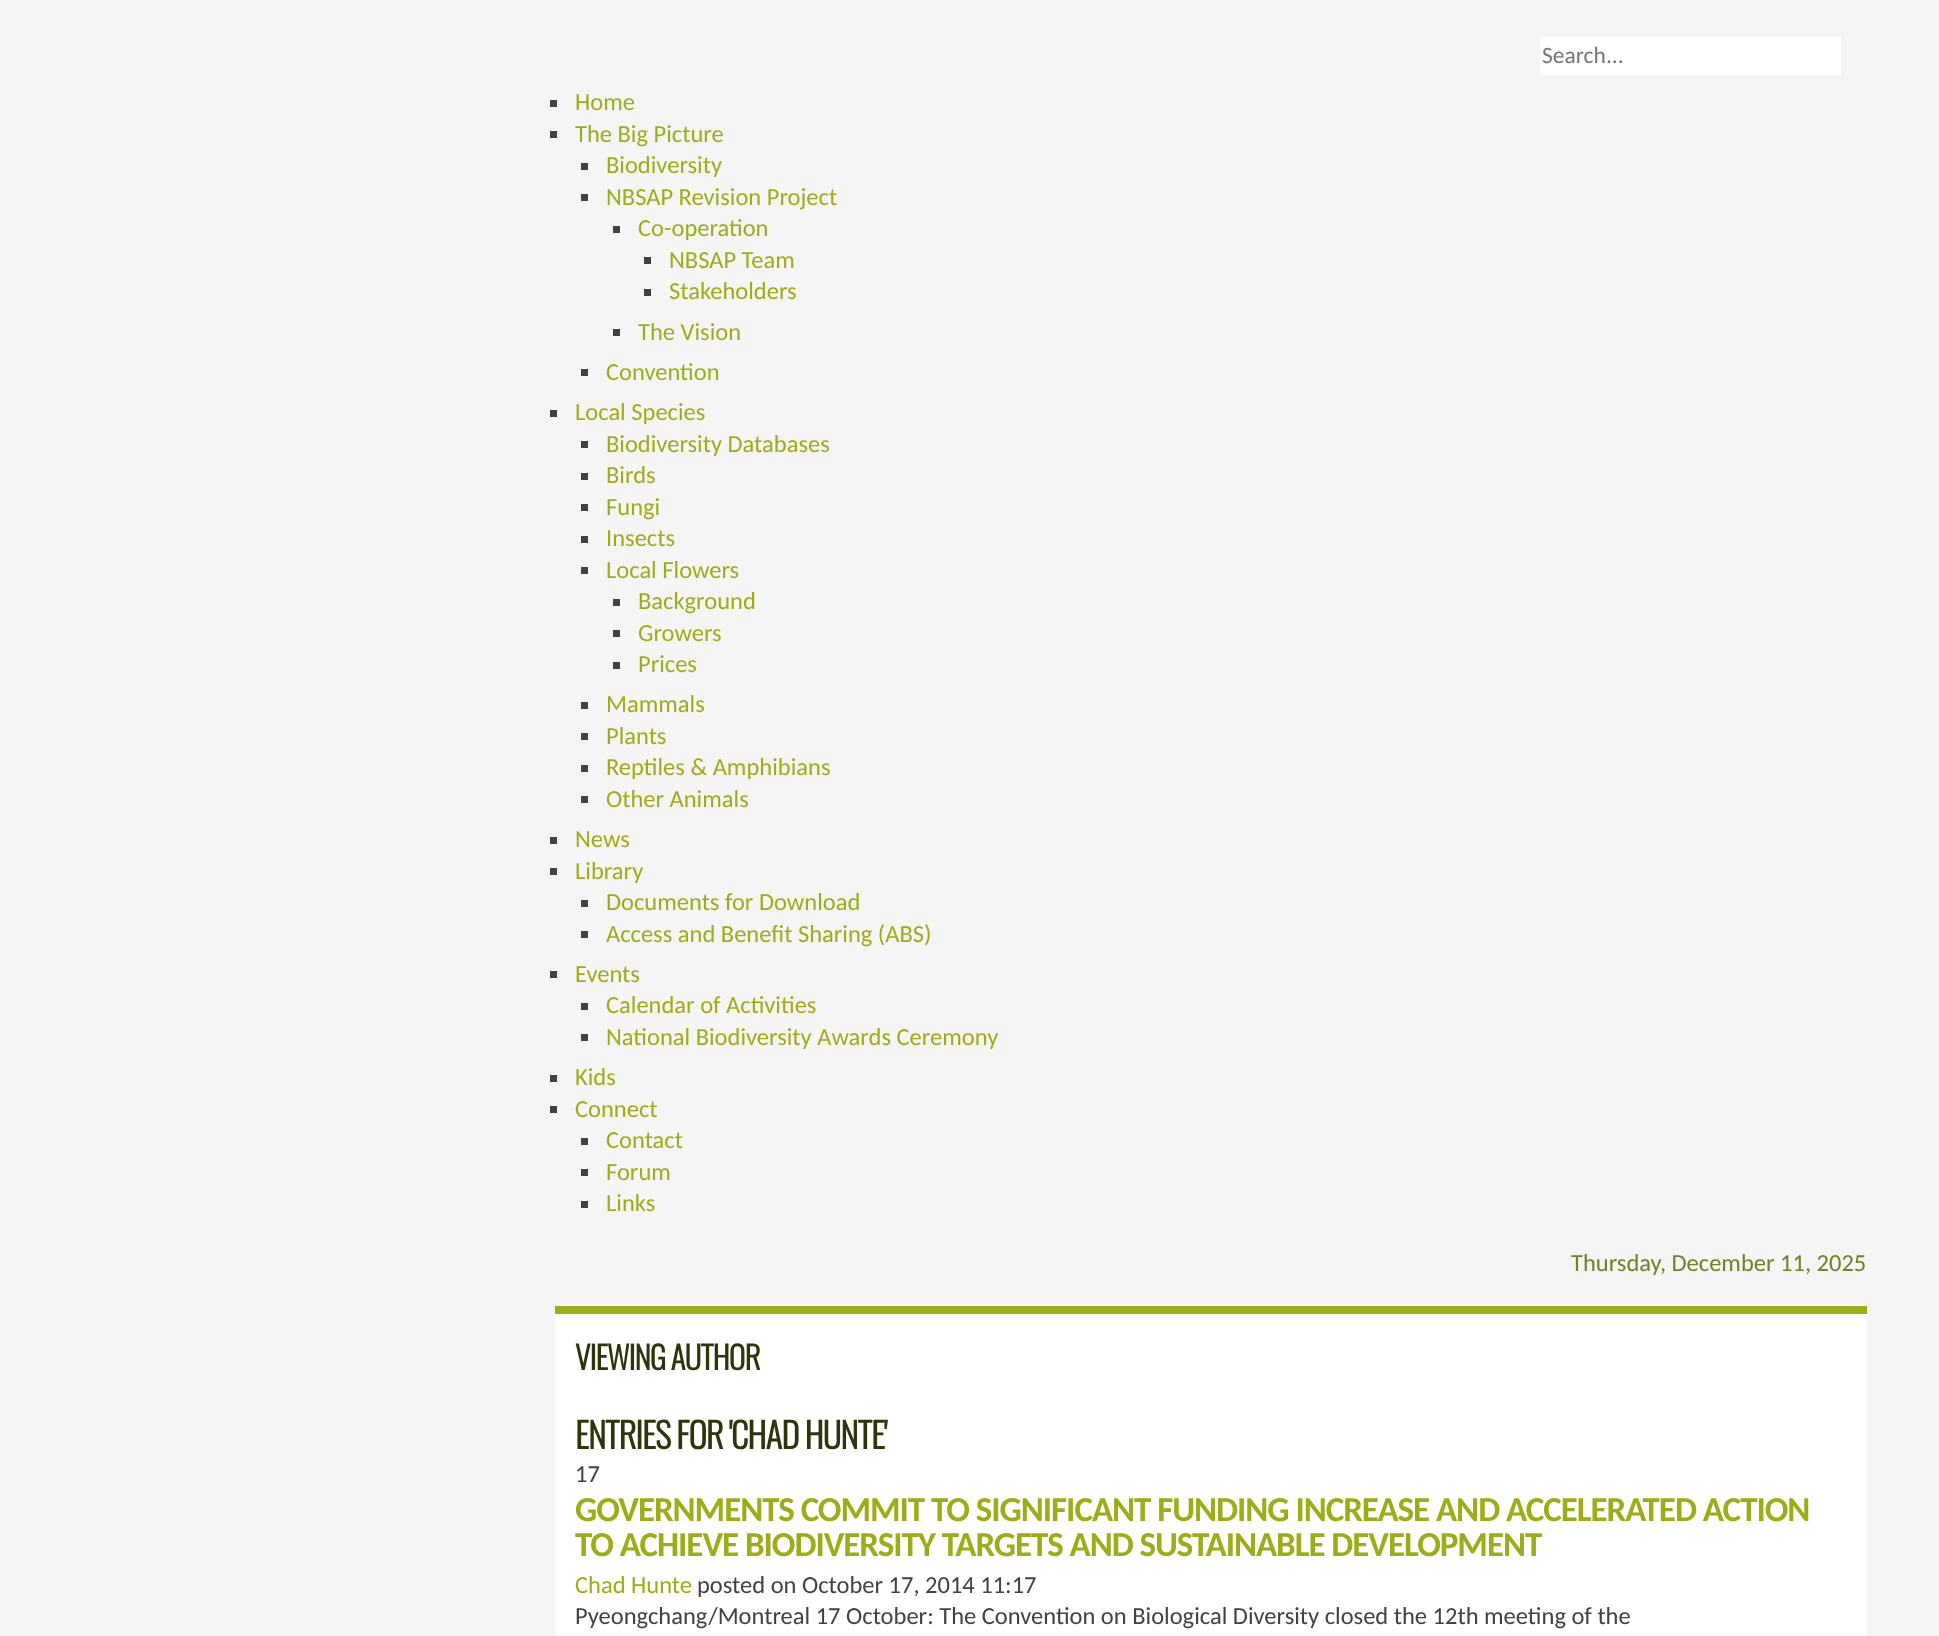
(async () => {
  const canvas = document.querySelector("canvas");
  canvas.width = 1939;
  canvas.height = 1636;
  const ctx = canvas.getContext("2d");
  ctx.miterLimit = 4;
  ctx.fontKerning = "normal";

  ctx.fillStyle = "#f6f5f5";
  ctx.fillRect(0, 0, 1939, 1636);
  for (const [x, y, w, h, color] of [
    [1540, 37, 301, 38, "#ffffff"],
    [550, 100, 7, 7, "#424242"],
    [550, 131, 7, 7, "#424242"],
    [581, 163, 7, 7, "#424242"],
    [581, 194, 7, 7, "#424242"],
    [613, 226, 7, 7, "#424242"],
    [644, 257, 7, 7, "#424242"],
    [644, 289, 7, 7, "#424242"],
    [613, 329, 7, 7, "#424242"],
    [581, 369, 7, 7, "#424242"],
    [550, 410, 7, 7, "#424242"],
    [581, 441, 7, 7, "#424242"],
    [581, 473, 7, 7, "#424242"],
    [581, 504, 7, 7, "#424242"],
    [581, 536, 7, 7, "#424242"],
    [581, 567, 7, 7, "#424242"],
    [613, 599, 7, 7, "#424242"],
    [613, 630, 7, 7, "#424242"],
    [613, 662, 7, 7, "#424242"],
    [581, 702, 7, 7, "#424242"],
    [581, 733, 7, 7, "#424242"],
    [581, 765, 7, 7, "#424242"],
    [581, 796, 7, 7, "#424242"],
    [550, 837, 7, 7, "#424242"],
    [550, 868, 7, 7, "#424242"],
    [581, 900, 7, 7, "#424242"],
    [581, 931, 7, 7, "#424242"],
    [550, 971, 7, 7, "#424242"],
    [581, 1003, 7, 7, "#424242"],
    [581, 1034, 7, 7, "#424242"],
    [550, 1075, 7, 7, "#424242"],
    [550, 1106, 7, 7, "#424242"],
    [581, 1138, 7, 7, "#424242"],
    [581, 1169, 7, 7, "#424242"],
    [581, 1201, 7, 7, "#424242"],
    [555, 1306, 1312, 8, "#9dad1a"],
    [555, 1314, 21, 322, "#ffffff"],
    [576, 1314, 1270, 322, "#ffffff"],
    [1846, 1314, 21, 322, "#ffffff"],
  ]) {
    ctx.fillStyle = color;
    ctx.fillRect(x, y, w, h);
  }
  ctx.font = "23.5px Carlito";
  ctx.fillStyle = "#757575";
  ctx.fillText("Search...", 1542, 63);
  ctx.font = "24.5px Carlito";
  ctx.fillStyle = "#9dad1a";
  for (const [text, x, y] of [
    ["Home", 575, 110],
    ["The Big Picture", 575, 142],
    ["Biodiversity", 606, 173],
    ["NBSAP Revision Project", 606, 205],
    ["Co-operation", 638, 236],
    ["NBSAP Team", 669, 268],
    ["Stakeholders", 669, 299],
    ["The Vision", 638, 340],
    ["Convention", 606, 380],
    ["Local Species", 575, 420],
    ["Biodiversity Databases", 606, 452],
    ["Birds", 606, 483],
    ["Fungi", 606, 515],
    ["Insects", 606, 546],
    ["Local Flowers", 606, 578],
    ["Background", 638, 609],
    ["Growers", 638, 641],
    ["Prices", 638, 672],
    ["Mammals", 606, 712],
    ["Plants", 606, 744],
    ["Reptiles & Amphibians", 606, 775],
    ["Other Animals", 606, 807],
    ["News", 575, 847],
    ["Library", 575, 879],
    ["Documents for Download", 606, 910],
    ["Access and Benefit Sharing (ABS)", 606, 942],
    ["Events", 575, 982],
    ["Calendar of Activities", 606, 1013],
    ["National Biodiversity Awards Ceremony", 606, 1045],
    ["Kids", 575, 1085],
    ["Connect", 575, 1117],
    ["Contact", 606, 1148],
    ["Forum", 606, 1180],
    ["Links", 606, 1211],
  ]) {
    ctx.fillText(text, x, y);
  }
  ctx.fillStyle = "#728028";
  ctx.fillText("Thursday, December 11, 2025", 1571, 1271);
  ctx.letterSpacing = "-1px";
  ctx.font = "bold 31.5px Oswald";
  ctx.fillStyle = "#2d350d";
  ctx.fillText("VIEWING AUTHOR", 575, 1370);
  ctx.letterSpacing = "-1.05px";
  ctx.font = "bold 35px Oswald";
  ctx.fillText("ENTRIES FOR 'CHAD HUNTE'", 575, 1449);
  ctx.letterSpacing = "0px";
  ctx.font = "24.5px Carlito";
  ctx.fillStyle = "#424242";
  ctx.fillText("17", 575, 1482);
  ctx.letterSpacing = "-1.05px";
  ctx.font = "bold 35px Carlito";
  ctx.fillStyle = "#9dad1a";
  ctx.fillText("GOVERNMENTS COMMIT TO SIGNIFICANT FUNDING INCREASE AND ACCELERATED ACTION", 575, 1521);
  ctx.fillText("TO ACHIEVE BIODIVERSITY TARGETS AND SUSTAINABLE DEVELOPMENT", 575, 1556);
  ctx.letterSpacing = "0px";
  ctx.font = "24.5px Carlito";
  ctx.fillText("Chad Hunte", 575, 1593);
  ctx.fillStyle = "#424242";
  ctx.fillText("posted on October 17, 2014 11:17", 697, 1593);
  ctx.fillText("Pyeongchang/Montreal 17 October: The Convention on Biological Diversity closed the 12th meeting of the", 575, 1624);
})();
